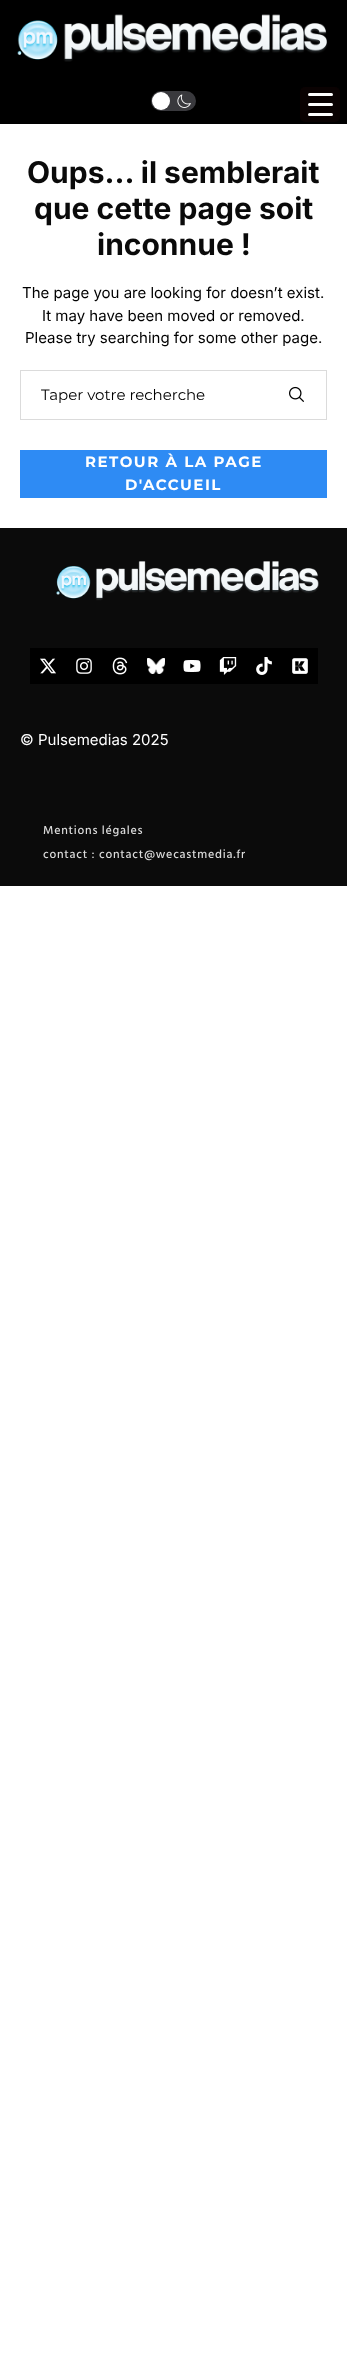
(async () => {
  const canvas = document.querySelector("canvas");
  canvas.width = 347;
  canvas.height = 2379;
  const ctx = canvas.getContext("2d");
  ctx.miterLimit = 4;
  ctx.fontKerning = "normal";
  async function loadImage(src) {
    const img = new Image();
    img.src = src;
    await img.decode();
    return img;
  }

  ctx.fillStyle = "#ffffff";
  ctx.fillRect(0, 0, 347, 2379);
  ctx.fillStyle = "#000000";
  ctx.fillRect(0, 0, 347, 124);
  ctx.drawImage(await loadImage("img/1.png"), 17, 14, 311, 48);
  ctx.fillStyle = "#39393d";
  ctx.beginPath();
  ctx.roundRect(151, 91, 45, 20, 10);
  ctx.fill();
  ctx.drawImage(await loadImage("img/3.png"), 169, 99, 1, 4);
  ctx.fillStyle = "#ffffff";
  ctx.beginPath();
  ctx.arc(161, 101, 9, 0, Math.PI * 2);
  ctx.fill();
  ctx.drawImage(await loadImage("img/2.png"), 177, 94, 14, 14);
  ctx.fillStyle = "#0a0202";
  ctx.beginPath();
  ctx.roundRect(300, 87, 40, 35, 5);
  ctx.fill();
  ctx.fillStyle = "#ffffff";
  ctx.beginPath();
  ctx.roundRect(308, 103, 25, 3, 1.5);
  ctx.fill();
  ctx.beginPath();
  ctx.roundRect(308, 93, 25, 3, 1.5);
  ctx.fill();
  ctx.beginPath();
  ctx.roundRect(308, 113, 25, 3, 1.5);
  ctx.fill();
  ctx.strokeStyle = "#dbdbdb";
  ctx.strokeRect(20.5, 370.5, 306, 49);
  ctx.drawImage(await loadImage("img/4.png"), 289, 386, 15, 16);
  ctx.fillStyle = "#2e8bf4";
  ctx.fillRect(20, 450, 307, 48);
  ctx.fillStyle = "#0b0b0b";
  ctx.fillRect(0, 528, 347, 358);
  ctx.drawImage(await loadImage("img/5.png"), 56, 561, 263, 40);
  ctx.fillStyle = "#000000";
  ctx.fillRect(30, 648, 288, 36);
  ctx.drawImage(await loadImage("img/6.png"), 40, 658, 16, 16);
  ctx.drawImage(await loadImage("img/7.png"), 76, 658, 16, 16);
  ctx.drawImage(await loadImage("img/8.png"), 112, 657, 16, 18);
  ctx.drawImage(await loadImage("img/9.png"), 147, 658, 18, 16);
  ctx.drawImage(await loadImage("img/10.png"), 183, 660, 18, 12);
  ctx.drawImage(await loadImage("img/11.png"), 219, 657, 18, 18);
  ctx.drawImage(await loadImage("img/12.png"), 256, 657, 16, 18);
  ctx.drawImage(await loadImage("img/13.png"), 292, 658, 16, 16);
  ctx.font = "bold 30px Inter";
  ctx.fillStyle = "#0a0a0a";
  for (const [text, x, y] of [
    ["Oups... il semblerait", 27, 183],
    ["que cette page soit", 34, 219],
    ["inconnue !", 97, 255],
  ]) {
    ctx.fillText(text, x, y);
  }
  ctx.font = "15px Inter";
  ctx.fillStyle = "#000000";
  for (const [text, x, y] of [
    ["The page you are looking for doesn’t exist.", 22, 298],
    ["It may have been moved or removed.", 42, 321],
    ["Please try searching for some other page.", 25, 343],
  ]) {
    ctx.fillText(text, x, y);
  }
  ctx.font = "15px Montserrat";
  ctx.fillText("Taper votre recherche", 41, 400);
  ctx.letterSpacing = "1.5px";
  ctx.font = "bold 15px Montserrat";
  ctx.fillStyle = "#ffffff";
  ctx.fillText("RETOUR À LA PAGE", 85, 467);
  ctx.fillText("D'ACCUEIL", 125, 490);
  ctx.letterSpacing = "0px";
  ctx.font = "15px Inter";
  ctx.fillText("© Pulsemedias 2025", 20, 745);
  ctx.letterSpacing = "0.75px";
  ctx.font = "500 12px Hind Madurai";
  ctx.fillStyle = "#dadada";
  ctx.fillText("Mentions légales", 43, 834);
  ctx.fillText("contact : contact@wecastmedia.fr", 43, 858);
})();
